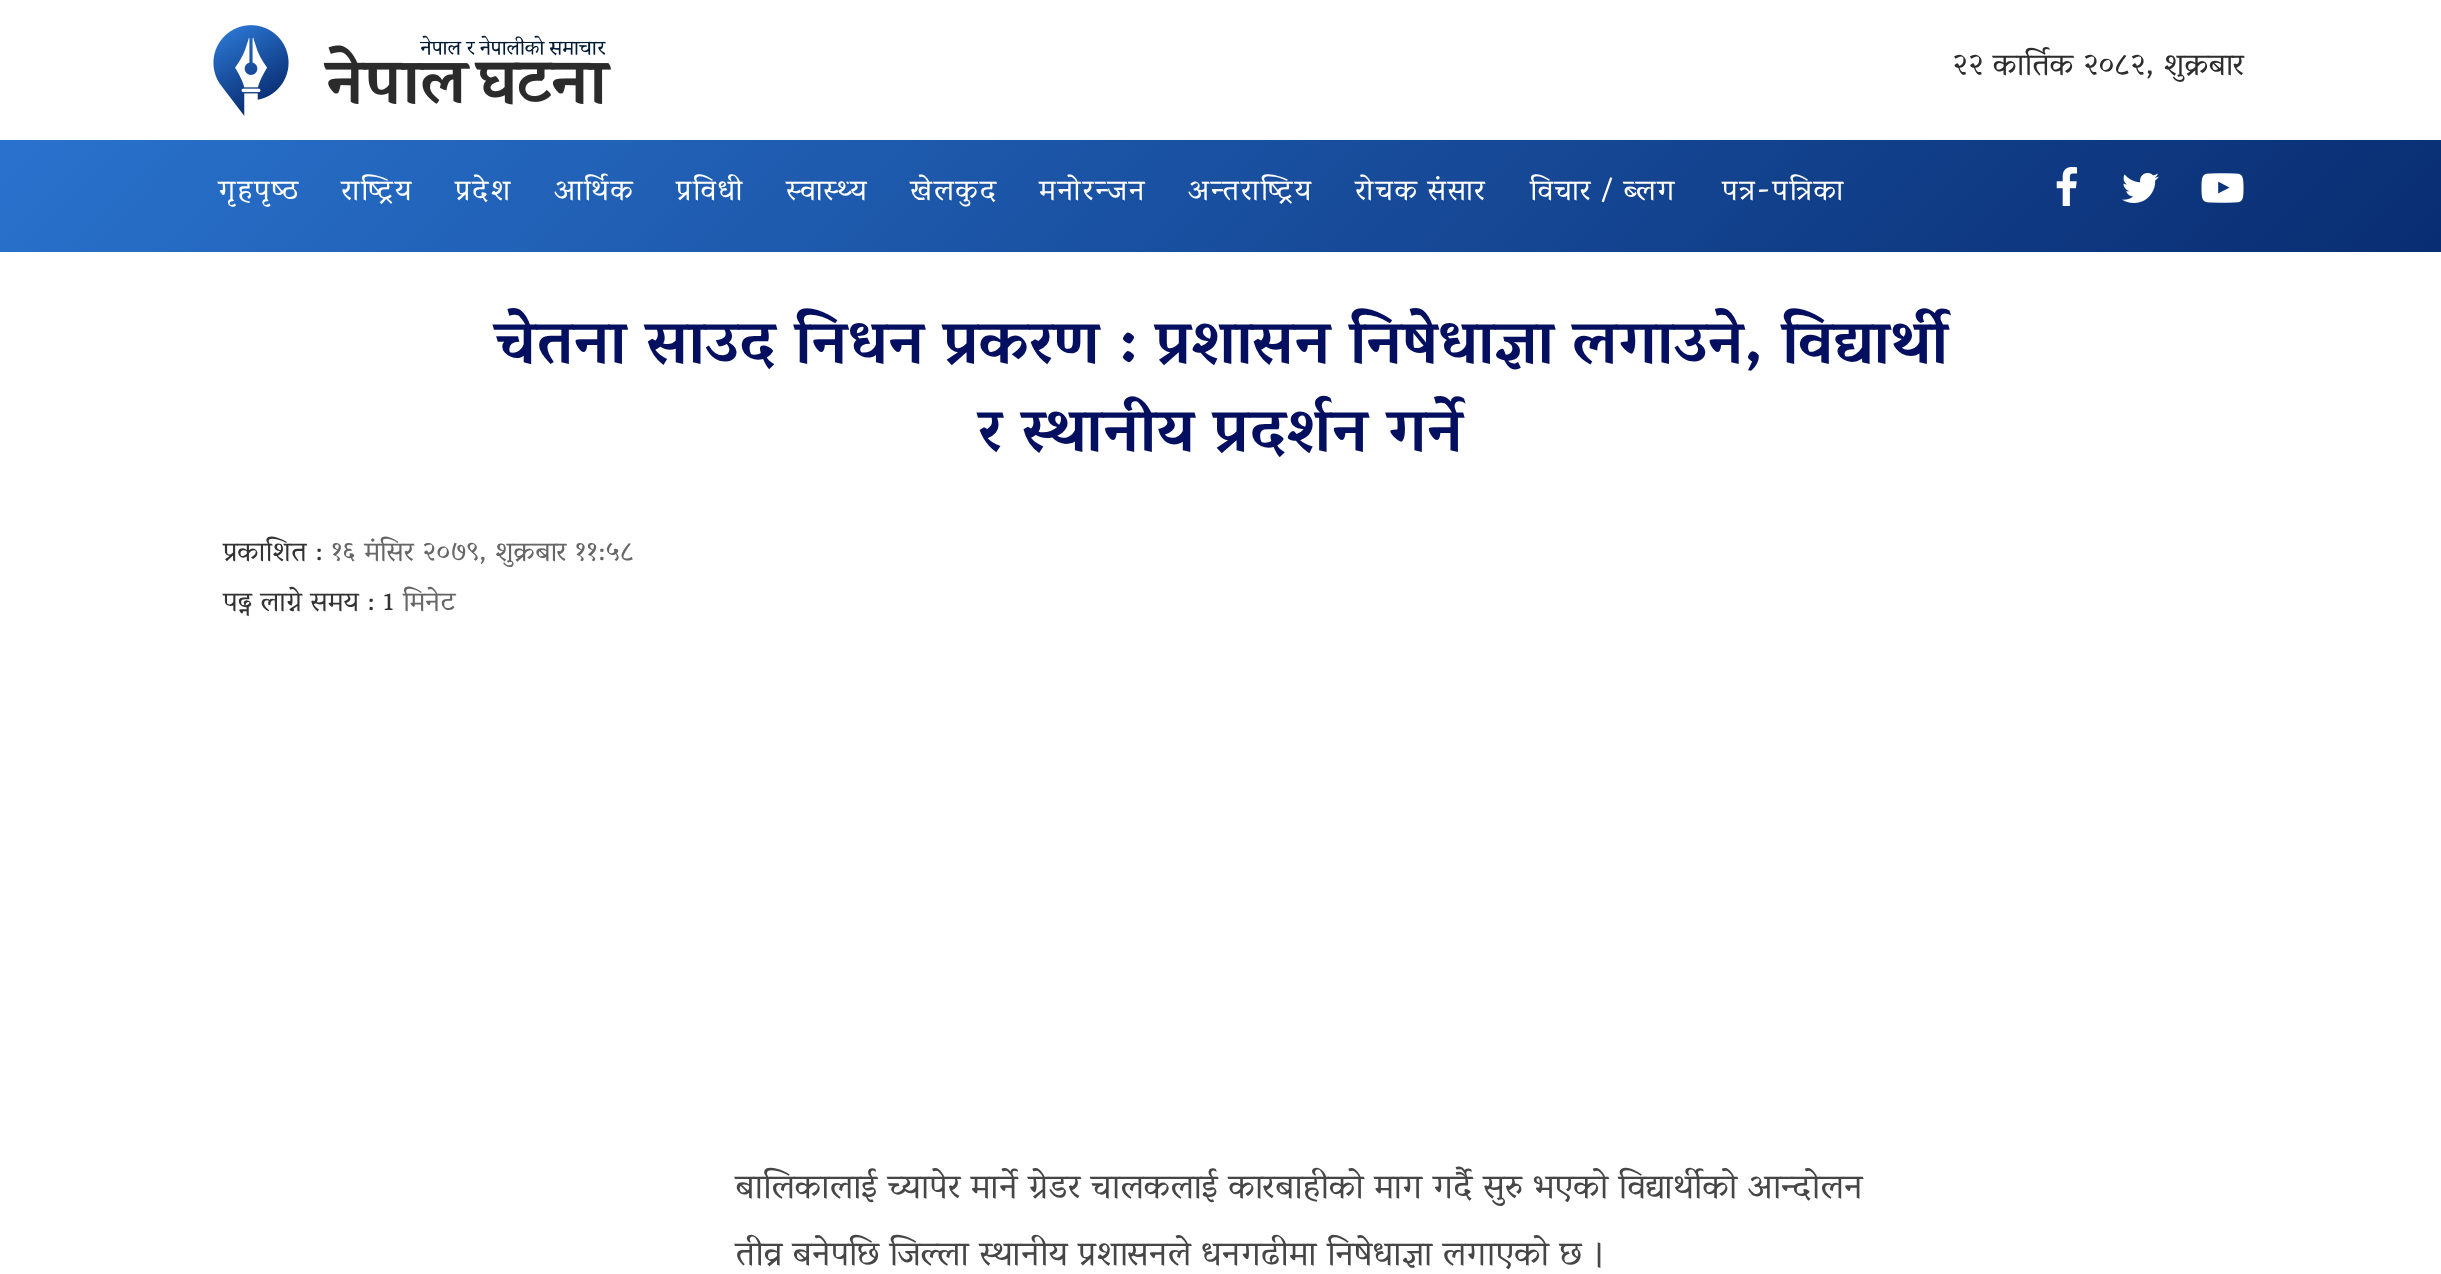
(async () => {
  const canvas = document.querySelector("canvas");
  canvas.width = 2441;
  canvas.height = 1274;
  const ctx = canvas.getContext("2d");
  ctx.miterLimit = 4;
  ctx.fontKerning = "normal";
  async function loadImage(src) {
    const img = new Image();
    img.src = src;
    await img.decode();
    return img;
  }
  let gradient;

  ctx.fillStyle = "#ffffff";
  ctx.fillRect(0, 0, 2441, 1274);
  ctx.drawImage(await loadImage("img/1.png"), 213, 25, 76, 91);
  ctx.drawImage(await loadImage("img/2.png"), 323, 35, 288, 70);
  gradient = ctx.createLinearGradient(582, -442, 1859, 834);
  gradient.addColorStop(0, "#2972cd");
  gradient.addColorStop(1, "#092d72");
  ctx.fillStyle = gradient;
  ctx.fillRect(0, 140, 2441, 112);
  ctx.drawImage(await loadImage("img/3.png"), 2056, 167, 21, 39);
  ctx.drawImage(await loadImage("img/4.png"), 2122, 173, 37, 30);
  ctx.drawImage(await loadImage("img/5.png"), 2201, 173, 43, 30);
  ctx.font = "31.5px Vesper Libre";
  ctx.fillStyle = "#2d2d2d";
  ctx.fillText("२२ कार्तिक २०८२, शुक्रबार", 1952, 74);
  ctx.letterSpacing = "1.75px";
  ctx.font = "29.75px Vesper Libre";
  ctx.fillStyle = "#ffffff";
  for (const [text, x, y] of [
    ["गृहपृष्‍ठ", 218, 199],
    ["राष्ट्रिय", 341, 199],
    ["प्रदेश", 455, 199],
    ["आर्थिक", 554, 199],
    ["प्रविधी", 676, 199],
    ["स्वास्थ्य", 786, 199],
    ["खेलकुद", 910, 199],
    ["मनोरन्जन", 1039, 199],
    ["अन्तराष्ट्रिय", 1188, 199],
  ]) {
    ctx.fillText(text, x, y);
  }
  ctx.wordSpacing = "-2px";
  ctx.fillText("रोचक संसार", 1355, 199);
  ctx.fillText("विचार / ब्लग", 1530, 199);
  ctx.wordSpacing = "0px";
  ctx.fillText("पत्र-पत्रिका", 1722, 199);
  ctx.letterSpacing = "0px";
  ctx.font = "bold 63px Vesper Libre";
  ctx.fillStyle = "#040f60";
  ctx.fillText("चेतना साउद निधन प्रकरण : प्रशासन निषेधाज्ञा लगाउने, विद्यार्थी", 494, 361);
  ctx.fillText("र स्थानीय प्रदर्शन गर्ने", 978, 449);
  ctx.font = "28px Vesper Libre";
  ctx.fillStyle = "#333333";
  ctx.fillText("प्रकाशित :", 223, 560);
  ctx.fillStyle = "#666666";
  ctx.fillText("१६ मंसिर २०७९, शुक्रबार ११:५८", 331, 560);
  ctx.fillStyle = "#333333";
  ctx.fillText("पढ्न लाग्ने समय :", 223, 610);
  ctx.fillText("1", 383, 610);
  ctx.fillStyle = "#666666";
  ctx.fillText("मिनेट", 403, 610);
  ctx.font = "35px Vesper Libre";
  ctx.fillStyle = "#464646";
  ctx.fillText("बालिकालाई च्यापेर मार्ने ग्रेडर चालकलाई कारबाहीको माग गर्दै सुरु भएको विद्यार्थीको आन्दोलन", 735, 1197);
  ctx.fillText("तीव्र बनेपछि जिल्ला स्थानीय प्रशासनले धनगढीमा निषेधाज्ञा लगाएको छ ।", 735, 1264);
})();
